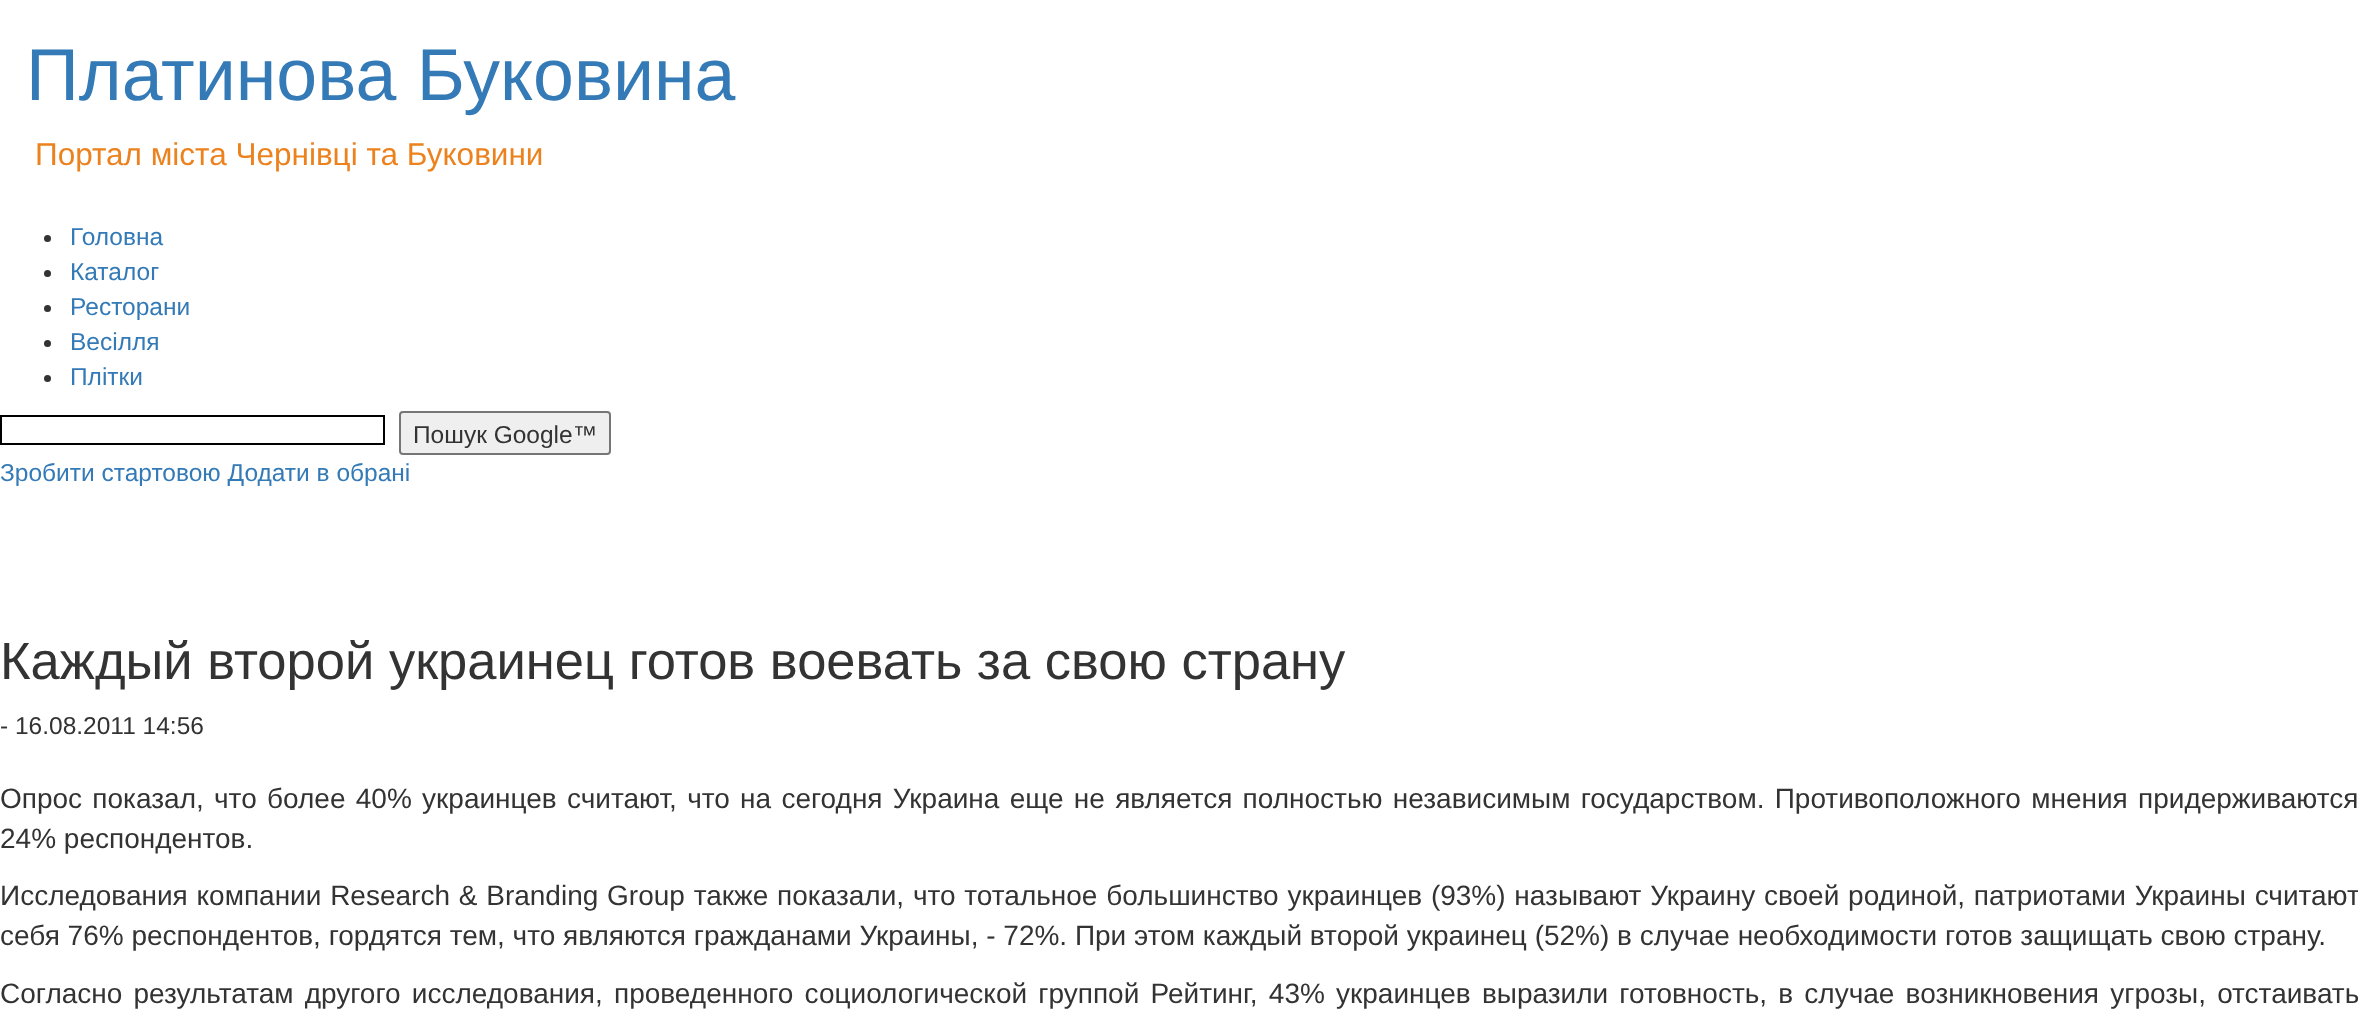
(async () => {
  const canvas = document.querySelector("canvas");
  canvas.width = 2358;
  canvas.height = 1013;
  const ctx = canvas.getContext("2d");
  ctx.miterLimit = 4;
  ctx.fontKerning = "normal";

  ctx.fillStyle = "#ffffff";
  ctx.fillRect(0, 0, 2358, 1013);
  ctx.fillStyle = "#333333";
  ctx.beginPath();
  ctx.arc(47.5, 238.5, 3.5, 0, Math.PI * 2);
  ctx.fill();
  ctx.beginPath();
  ctx.arc(47.5, 273.5, 3.5, 0, Math.PI * 2);
  ctx.fill();
  ctx.beginPath();
  ctx.arc(47.5, 308.5, 3.5, 0, Math.PI * 2);
  ctx.fill();
  ctx.beginPath();
  ctx.arc(47.5, 343.5, 3.5, 0, Math.PI * 2);
  ctx.fill();
  ctx.beginPath();
  ctx.arc(47.5, 378.5, 3.5, 0, Math.PI * 2);
  ctx.fill();
  ctx.strokeStyle = "#000000";
  ctx.lineWidth = 2;
  ctx.strokeRect(1, 416, 383, 28);
  ctx.fillStyle = "#efefef";
  ctx.beginPath();
  ctx.roundRect(400, 412, 210, 42, 3);
  ctx.fill();
  ctx.strokeStyle = "#767676";
  ctx.stroke();
  ctx.font = "73.5px Liberation Sans";
  ctx.fillStyle = "#337ab7";
  ctx.fillText("Платинова Буковина", 26, 100);
  ctx.font = "31.5px Liberation Sans";
  ctx.fillStyle = "#ec821e";
  ctx.fillText("Портал міста Чернівці та Буковини", 35, 165);
  ctx.font = "24.5px Liberation Sans";
  ctx.fillStyle = "#337ab7";
  for (const [text, x, y] of [
    ["Головна", 70, 245],
    ["Каталог", 70, 280],
    ["Ресторани", 70, 315],
    ["Весілля", 70, 350],
    ["Плітки", 70, 385],
  ]) {
    ctx.fillText(text, x, y);
  }
  ctx.fillStyle = "#333333";
  ctx.fillText("Пошук Google™", 413, 443);
  ctx.fillStyle = "#337ab7";
  ctx.fillText("Зробити стартовою Додати в обрані", 0, 481);
  ctx.font = "52.5px Liberation Sans";
  ctx.fillStyle = "#333333";
  ctx.fillText("Каждый второй украинец готов воевать за свою страну", 0, 679);
  ctx.font = "24.5px Liberation Sans";
  ctx.fillText("- 16.08.2011 14:56", 0, 734);
  ctx.wordSpacing = "2.5px";
  ctx.font = "28px Liberation Sans";
  ctx.fillText("Опрос показал, что более 40% украинцев считают, что на сегодня Украина еще не является полностью независимым государством. Противоположного мнения придерживаются", 0, 808);
  ctx.wordSpacing = "0px";
  ctx.fillText("24% респондентов.", 0, 848);
  ctx.wordSpacing = "1px";
  ctx.fillText("Исследования компании Research & Branding Group также показали, что тотальное большинство украинцев (93%) называют Украину своей родиной, патриотами Украины считают", 0, 905);
  ctx.wordSpacing = "0px";
  ctx.fillText("себя 76% респондентов, гордятся тем, что являются гражданами Украины, - 72%. При этом каждый второй украинец (52%) в случае необходимости готов защищать свою страну.", 0, 945);
  ctx.wordSpacing = "3.4px";
  ctx.fillText("Согласно результатам другого исследования, проведенного социологической группой Рейтинг, 43% украинцев выразили готовность, в случае возникновения угрозы, отстаивать", 0, 1003);
})();
